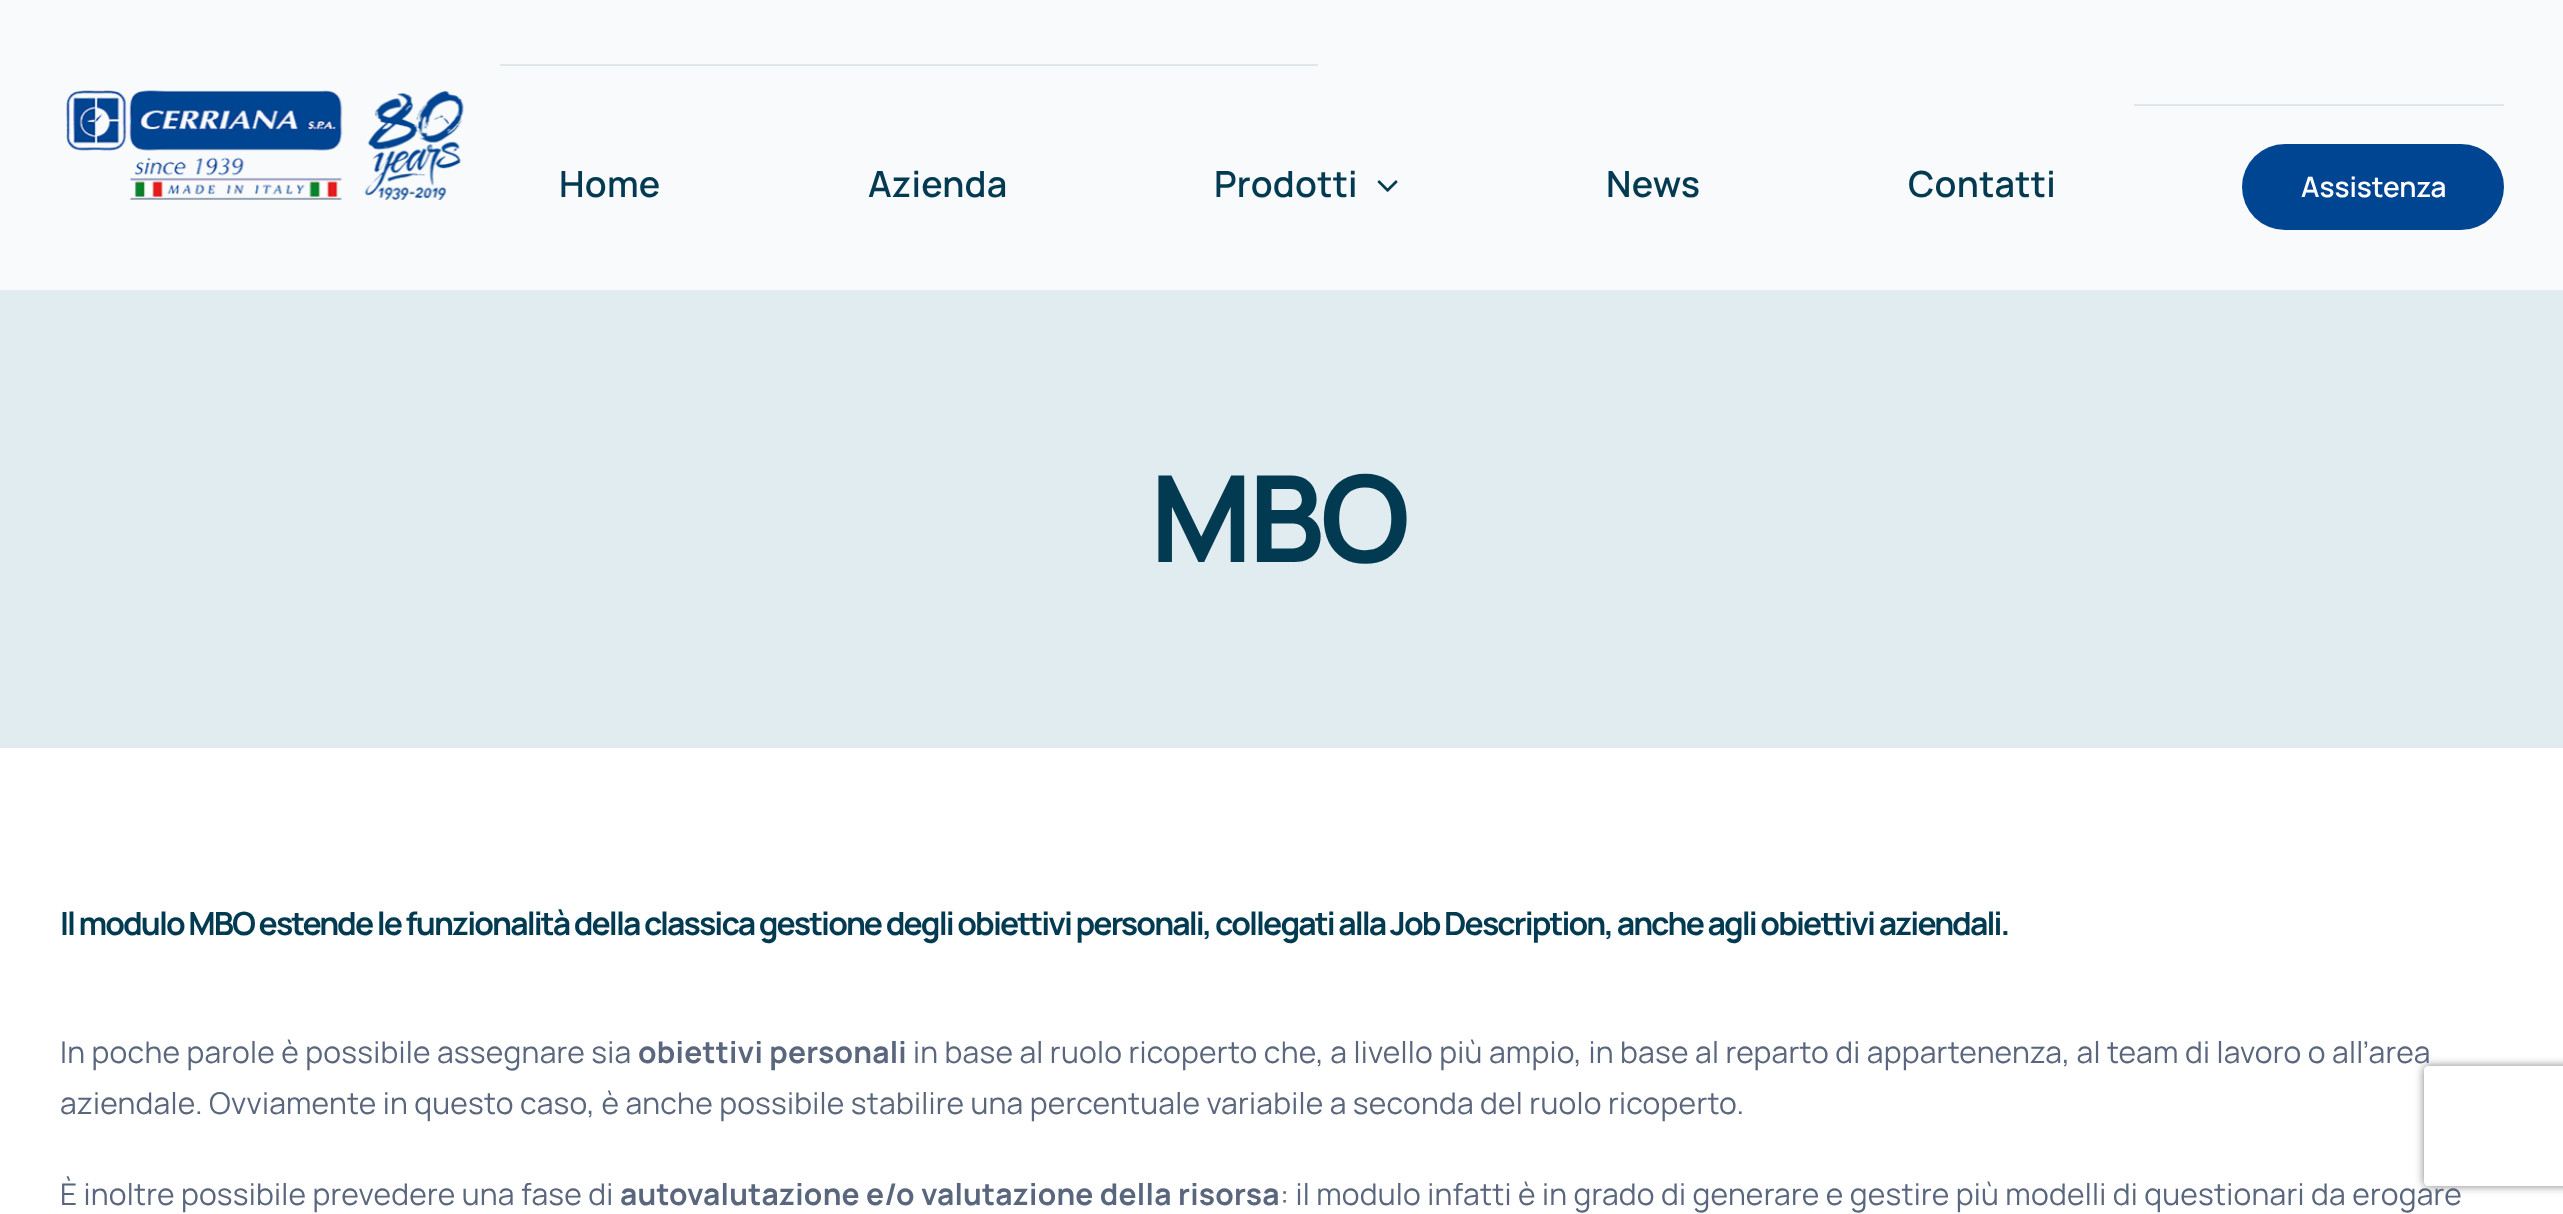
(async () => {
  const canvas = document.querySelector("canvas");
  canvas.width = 2563;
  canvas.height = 1214;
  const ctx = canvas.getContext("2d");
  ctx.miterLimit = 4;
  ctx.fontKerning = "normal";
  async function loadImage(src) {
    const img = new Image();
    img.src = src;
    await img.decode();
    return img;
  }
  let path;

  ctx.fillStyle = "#ffffff";
  ctx.fillRect(0, 0, 2563, 1214);
  ctx.fillStyle = "#f9fafb";
  ctx.fillRect(0, 0, 2563, 290);
  ctx.drawImage(await loadImage("img/1.png"), 66, 90, 398, 110);
  ctx.fillStyle = "#e0e7ea";
  ctx.fillRect(500, 64, 818, 2);
  ctx.fillRect(2134, 104, 370, 2);
  ctx.drawImage(await loadImage("img/2.png"), 1377, 180, 21, 12);
  ctx.fillStyle = "#004592";
  ctx.beginPath();
  ctx.roundRect(2242, 144, 262, 86, 43);
  ctx.fill();
  ctx.fillStyle = "#e0ecf0";
  ctx.fillRect(0, 290, 2563, 458);
  ctx.save();
  path = new Path2D("M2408 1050H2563V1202H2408ZM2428 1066H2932C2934 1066 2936 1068 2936 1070V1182C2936 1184 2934 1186 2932 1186H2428C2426 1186 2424 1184 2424 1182V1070C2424 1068 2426 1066 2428 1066Z");
  ctx.clip(path, "evenodd");
  ctx.fillStyle = "#808080";
  ctx.filter = "blur(5px)";
  ctx.beginPath();
  ctx.roundRect(2424, 1066, 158, 120, 4);
  ctx.fill();
  ctx.filter = "none";
  ctx.restore();
  ctx.letterSpacing = "0.25px";
  ctx.font = "600 36px Manrope";
  ctx.fillStyle = "#023a51";
  for (const [text, x, y] of [
    ["Home", 559, 197],
    ["Azienda", 868, 197],
    ["Prodotti", 1214, 197],
    ["News", 1606, 197],
    ["Contatti", 1908, 197],
  ]) {
    ctx.fillText(text, x, y);
  }
  ctx.letterSpacing = "0px";
  ctx.font = "600 28px Manrope";
  ctx.fillStyle = "#ffffff";
  ctx.fillText("Assistenza", 2301, 197);
  ctx.letterSpacing = "-4px";
  ctx.font = "bold 120px Manrope";
  ctx.fillStyle = "#023a51";
  ctx.fillText("MBO", 1150, 562);
  ctx.letterSpacing = "-1.92px";
  ctx.font = "bold 32px Manrope";
  ctx.fillText("Il modulo MBO estende le funzionalità della classica gestione degli obiettivi personali, collegati alla Job Description, anche agli obiettivi aziendali.", 60, 935);
  ctx.letterSpacing = "0.24px";
  ctx.font = "30px Manrope";
  ctx.fillStyle = "#59667d";
  ctx.fillText("In poche parole è possibile assegnare sia", 60, 1063);
  ctx.font = "bold 30px Manrope";
  ctx.fillText("obiettivi personali", 638, 1063);
  ctx.font = "30px Manrope";
  for (const [text, x, y] of [
    ["in base al ruolo ricoperto che, a livello più ampio, in base al reparto di appartenenza, al team di lavoro o all’area", 913, 1063],
    ["aziendale. Ovviamente in questo caso, è anche possibile stabilire una percentuale variabile a seconda del ruolo ricoperto.", 60, 1114],
    ["È inoltre possibile prevedere una fase di", 60, 1205],
  ]) {
    ctx.fillText(text, x, y);
  }
  ctx.font = "bold 30px Manrope";
  ctx.fillText("autovalutazione e/o valutazione della risorsa", 620, 1205);
  ctx.font = "30px Manrope";
  ctx.fillText(": il modulo infatti è in grado di generare e gestire più modelli di questionari da erogare", 1280, 1205);
})();
